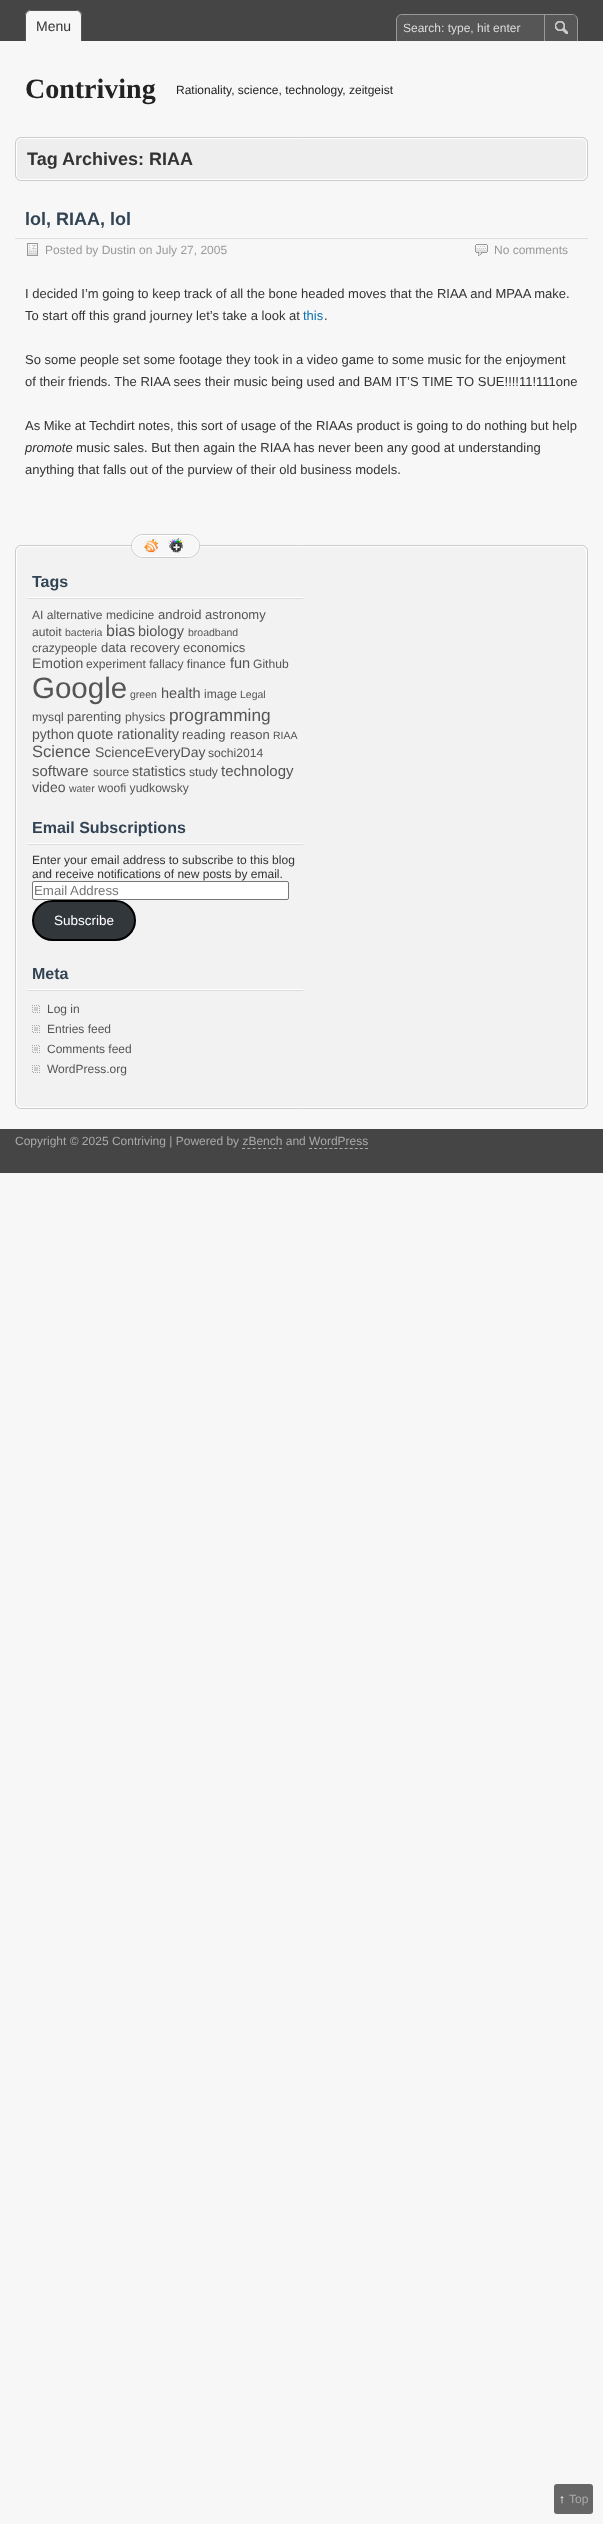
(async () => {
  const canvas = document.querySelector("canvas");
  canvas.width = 603;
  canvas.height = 2524;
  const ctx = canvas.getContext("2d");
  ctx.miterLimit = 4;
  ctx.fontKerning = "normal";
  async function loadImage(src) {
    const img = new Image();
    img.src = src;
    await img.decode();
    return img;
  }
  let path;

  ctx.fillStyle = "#f7f7f7";
  ctx.fillRect(0, 0, 603, 2524);
  ctx.fillStyle = "#454546";
  ctx.fillRect(0, 0, 603, 41);
  ctx.fillStyle = "#f7f7f7";
  ctx.beginPath();
  ctx.roundRect(25, 10, 57, 31, [6, 6, 0, 0]);
  ctx.fill();
  ctx.fillStyle = "#555555";
  path = new Path2D("M31 10H76C79 10 82 13 82 16V41H25V16C25 13 28 10 31 10ZM31 11H76C79 11 81 13 81 16V41H26V16C26 13 28 11 31 11Z");
  ctx.fill(path, "evenodd");
  ctx.fillStyle = "#565657";
  ctx.beginPath();
  ctx.roundRect(396, 14, 182, 27, [6, 6, 0, 0]);
  ctx.fill();
  ctx.fillStyle = "#999999";
  path = new Path2D("M402 14H572C575 14 578 17 578 20V41H396V20C396 17 399 14 402 14ZM402 15H572C575 15 577 17 577 20V41H397V20C397 17 399 15 402 15Z");
  ctx.fill(path, "evenodd");
  ctx.fillStyle = "#565657";
  ctx.fillRect(572, 15, 3, 1);
  ctx.drawImage(await loadImage("img/1.png"), 555, 21, 13, 13);
  ctx.fillStyle = "#999999";
  ctx.fillRect(544, 15, 1, 26);
  ctx.fillStyle = "#eeeeee";
  ctx.beginPath();
  ctx.roundRect(15.5, 137.5, 572, 43, 5.5);
  ctx.fill();
  ctx.strokeStyle = "#cccccc";
  ctx.stroke();
  ctx.beginPath();
  ctx.roundRect(16.5, 138.5, 570, 41, 5.5);
  ctx.strokeStyle = "#ffffff";
  ctx.stroke();
  ctx.fillStyle = "#fafafa";
  ctx.fillRect(15, 237, 573, 1);
  ctx.fillStyle = "#dddddd";
  ctx.fillRect(15, 238, 573, 1);
  ctx.drawImage(await loadImage("img/2.png"), 27, 243, 11, 13);
  ctx.drawImage(await loadImage("img/3.png"), 475, 244, 13, 12);
  ctx.fillStyle = "#f2f2f2";
  ctx.beginPath();
  ctx.roundRect(15.5, 545.5, 572, 563, 5.5);
  ctx.fill();
  ctx.strokeStyle = "#cccccc";
  ctx.stroke();
  ctx.beginPath();
  ctx.roundRect(16.5, 546.5, 570, 561, 5.5);
  ctx.strokeStyle = "#ffffff";
  ctx.stroke();
  ctx.beginPath();
  ctx.roundRect(131.5, 534.5, 68, 23, 11.5);
  ctx.strokeStyle = "#cccccc";
  ctx.stroke();
  ctx.fillStyle = "#f7f7f7";
  ctx.beginPath();
  ctx.roundRect(132.5, 535.5, 66, 21, 10.5);
  ctx.fill();
  ctx.strokeStyle = "#ffffff";
  ctx.stroke();
  ctx.drawImage(await loadImage("img/4.png"), 143, 539, 16, 14);
  ctx.drawImage(await loadImage("img/5.png"), 168, 538, 16, 15);
  for (const [x, y, w, h, color] of [
    [27, 597, 276, 1, "#ffffff"],
    [27, 598, 276, 1, "#dddddd"],
    [27, 843, 276, 1, "#ffffff"],
    [27, 844, 276, 1, "#dddddd"],
  ]) {
    ctx.fillStyle = color;
    ctx.fillRect(x, y, w, h);
  }
  ctx.fillStyle = "#ffffff";
  ctx.beginPath();
  ctx.roundRect(32.5, 881.5, 256, 18, 1.5);
  ctx.fill();
  ctx.strokeStyle = "#767676";
  ctx.stroke();
  ctx.fillStyle = "#32373c";
  ctx.beginPath();
  ctx.roundRect(33, 901, 102, 39, 19.5);
  ctx.fill();
  ctx.strokeStyle = "#000000";
  ctx.lineWidth = 2;
  ctx.stroke();
  ctx.fillStyle = "#ffffff";
  ctx.fillRect(27, 989, 276, 1);
  ctx.fillStyle = "#dddddd";
  ctx.fillRect(27, 990, 276, 1);
  ctx.drawImage(await loadImage("img/6.png"), 32, 1005, 8, 8);
  ctx.drawImage(await loadImage("img/6.png"), 32, 1025, 8, 8);
  ctx.drawImage(await loadImage("img/6.png"), 32, 1045, 8, 8);
  ctx.drawImage(await loadImage("img/6.png"), 32, 1065, 8, 8);
  ctx.fillStyle = "#454546";
  ctx.fillRect(0, 1129, 603, 44);
  path = new Path2D("M242 1148.5H282");
  ctx.strokeStyle = "#aaaaaa";
  ctx.lineWidth = 1;
  ctx.setLineDash([3, 2.29]);
  ctx.stroke(path);
  path = new Path2D("M309 1148.5H368");
  ctx.setLineDash([3, 2.09]);
  ctx.stroke(path);
  ctx.fillStyle = "#666666";
  ctx.beginPath();
  ctx.roundRect(554, 2484, 39, 30, 3);
  ctx.fill();
  ctx.font = "14px Liberation Sans";
  ctx.fillStyle = "#333333";
  ctx.fillText("Menu", 36, 31);
  ctx.font = "12px Liberation Sans";
  ctx.fillStyle = "#dddddd";
  ctx.fillText("Search: type, hit enter", 403, 32);
  ctx.font = "bold 28px Liberation Serif";
  ctx.fillStyle = "#222222";
  ctx.fillText("Contriving", 25, 98);
  ctx.font = "12px Liberation Sans";
  ctx.fillText("Rationality, science, technology, zeitgeist", 176, 94);
  ctx.font = "bold 18px Liberation Sans";
  ctx.fillStyle = "#333333";
  ctx.fillText("Tag Archives: RIAA", 27, 165);
  ctx.fillStyle = "#334455";
  ctx.fillText("lol, RIAA, lol", 25, 225);
  ctx.font = "12px Liberation Sans";
  ctx.fillStyle = "#999999";
  ctx.fillText("Posted by Dustin on July 27, 2005", 45, 254);
  ctx.fillText("No comments", 494, 254);
  ctx.font = "13px Liberation Sans";
  ctx.fillStyle = "#333333";
  ctx.fillText("I decided I’m going to keep track of all the bone headed moves that the RIAA and MPAA make.", 25, 298);
  ctx.fillText("To start off this grand journey let’s take a look at", 25, 320);
  ctx.fillStyle = "#0971b2";
  ctx.fillText("this", 303, 320);
  ctx.fillStyle = "#333333";
  for (const [text, x, y] of [
    [".", 324, 320],
    ["So some people set some footage they took in a video game to some music for the enjoyment", 25, 364],
    ["of their friends. The RIAA sees their music being used and BAM IT’S TIME TO SUE!!!!11!111one", 25, 386],
    ["As Mike at Techdirt notes, this sort of usage of the RIAAs product is going to do nothing but help", 25, 430],
  ]) {
    ctx.fillText(text, x, y);
  }
  ctx.font = "italic 13px Liberation Sans";
  ctx.fillText("promote", 25, 452);
  ctx.font = "13px Liberation Sans";
  ctx.fillText("music sales. But then again the RIAA has never been any good at understanding", 76, 452);
  ctx.fillText("anything that falls out of the purview of their old business models.", 25, 474);
  ctx.font = "bold 16px Liberation Sans";
  ctx.fillStyle = "#334455";
  ctx.fillText("Tags", 32, 587);
  ctx.font = "12.1px Liberation Sans";
  ctx.fillStyle = "#555555";
  ctx.fillText("AI alternative medicine", 32, 619);
  ctx.font = "13px Liberation Sans";
  ctx.fillText("android", 158, 619);
  ctx.fillText("astronomy", 205, 619);
  ctx.font = "12.1px Liberation Sans";
  ctx.fillText("autoit", 32, 636);
  ctx.font = "10.5px Liberation Sans";
  ctx.fillText("bacteria", 65, 636);
  ctx.font = "16px Liberation Sans";
  ctx.fillText("bias", 106, 636);
  ctx.font = "14.5px Liberation Sans";
  ctx.fillText("biology", 138, 636);
  ctx.font = "10.5px Liberation Sans";
  ctx.fillText("broadband", 188, 636);
  ctx.font = "12.1px Liberation Sans";
  ctx.fillText("crazypeople", 32, 652);
  ctx.font = "13px Liberation Sans";
  ctx.fillText("data recovery", 101, 652);
  ctx.fillText("economics", 183, 652);
  ctx.font = "14px Liberation Sans";
  ctx.fillText("Emotion", 32, 668);
  ctx.font = "12.1px Liberation Sans";
  ctx.fillText("experiment fallacy finance", 86, 668);
  ctx.font = "14.5px Liberation Sans";
  ctx.fillText("fun", 230, 668);
  ctx.font = "12.1px Liberation Sans";
  ctx.fillText("Github", 253, 668);
  ctx.font = "29.5px Liberation Sans";
  ctx.fillText("Google", 32, 698);
  ctx.font = "10.5px Liberation Sans";
  ctx.fillText("green", 130, 698);
  ctx.font = "14.5px Liberation Sans";
  ctx.fillText("health", 161, 698);
  ctx.font = "12.1px Liberation Sans";
  ctx.fillText("image", 204, 698);
  ctx.font = "10.5px Liberation Sans";
  ctx.fillText("Legal", 240, 698);
  ctx.font = "12.1px Liberation Sans";
  ctx.fillText("mysql", 32, 721);
  ctx.font = "13px Liberation Sans";
  ctx.fillText("parenting", 67, 721);
  ctx.font = "12.1px Liberation Sans";
  ctx.fillText("physics", 125, 721);
  ctx.font = "17.25px Liberation Sans";
  ctx.fillText("programming", 169, 721);
  ctx.font = "14px Liberation Sans";
  ctx.fillText("python", 32, 739);
  ctx.font = "14.5px Liberation Sans";
  ctx.fillText("quote", 77, 739);
  ctx.fillText("rationality", 117, 739);
  ctx.font = "13px Liberation Sans";
  ctx.fillText("reading", 182, 739);
  ctx.fillText("reason", 230, 739);
  ctx.font = "10.5px Liberation Sans";
  ctx.fillText("RIAA", 273, 739);
  ctx.font = "16.5px Liberation Sans";
  ctx.fillText("Science", 32, 757);
  ctx.font = "14px Liberation Sans";
  ctx.fillText("ScienceEveryDay", 95, 757);
  ctx.font = "12.1px Liberation Sans";
  ctx.fillText("sochi2014", 208, 757);
  ctx.font = "15px Liberation Sans";
  ctx.fillText("software", 32, 776);
  ctx.font = "12.1px Liberation Sans";
  ctx.fillText("source", 93, 776);
  ctx.font = "14px Liberation Sans";
  ctx.fillText("statistics", 132, 776);
  ctx.font = "12.1px Liberation Sans";
  ctx.fillText("study", 189, 776);
  ctx.font = "15px Liberation Sans";
  ctx.fillText("technology", 221, 776);
  ctx.font = "14px Liberation Sans";
  ctx.fillText("video", 32, 792);
  ctx.font = "10.5px Liberation Sans";
  ctx.fillText("water", 69, 792);
  ctx.font = "12.1px Liberation Sans";
  ctx.fillText("woofi yudkowsky", 98, 792);
  ctx.font = "bold 16px Liberation Sans";
  ctx.fillStyle = "#334455";
  ctx.fillText("Email Subscriptions", 32, 833);
  ctx.font = "12px Liberation Sans";
  ctx.fillStyle = "#333333";
  ctx.fillText("Enter your email address to subscribe to this blog", 32, 864);
  ctx.fillText("and receive notifications of new posts by email.", 32, 878);
  ctx.font = "13.25px Liberation Sans";
  ctx.fillStyle = "#757575";
  ctx.fillText("Email Address", 34, 895);
  ctx.font = "13.5px Liberation Sans";
  ctx.fillStyle = "#ffffff";
  ctx.fillText("Subscribe", 54, 925);
  ctx.font = "bold 16px Liberation Sans";
  ctx.fillStyle = "#334455";
  ctx.fillText("Meta", 32, 979);
  ctx.font = "12px Liberation Sans";
  ctx.fillStyle = "#555555";
  for (const [text, x, y] of [
    ["Log in", 47, 1013],
    ["Entries feed", 47, 1033],
    ["Comments feed", 47, 1053],
    ["WordPress.org", 47, 1073],
  ]) {
    ctx.fillText(text, x, y);
  }
  ctx.fillStyle = "#aaaaaa";
  ctx.fillText("Copyright © 2025 Contriving | Powered by zBench and WordPress", 15, 1145);
  ctx.font = "bold 12px Liberation Sans";
  ctx.fillStyle = "#ffffff";
  ctx.fillText("↑", 559, 2503);
  ctx.font = "12px Liberation Sans";
  ctx.fillStyle = "#aaaaaa";
  ctx.fillText("Top", 569, 2503);
})();
